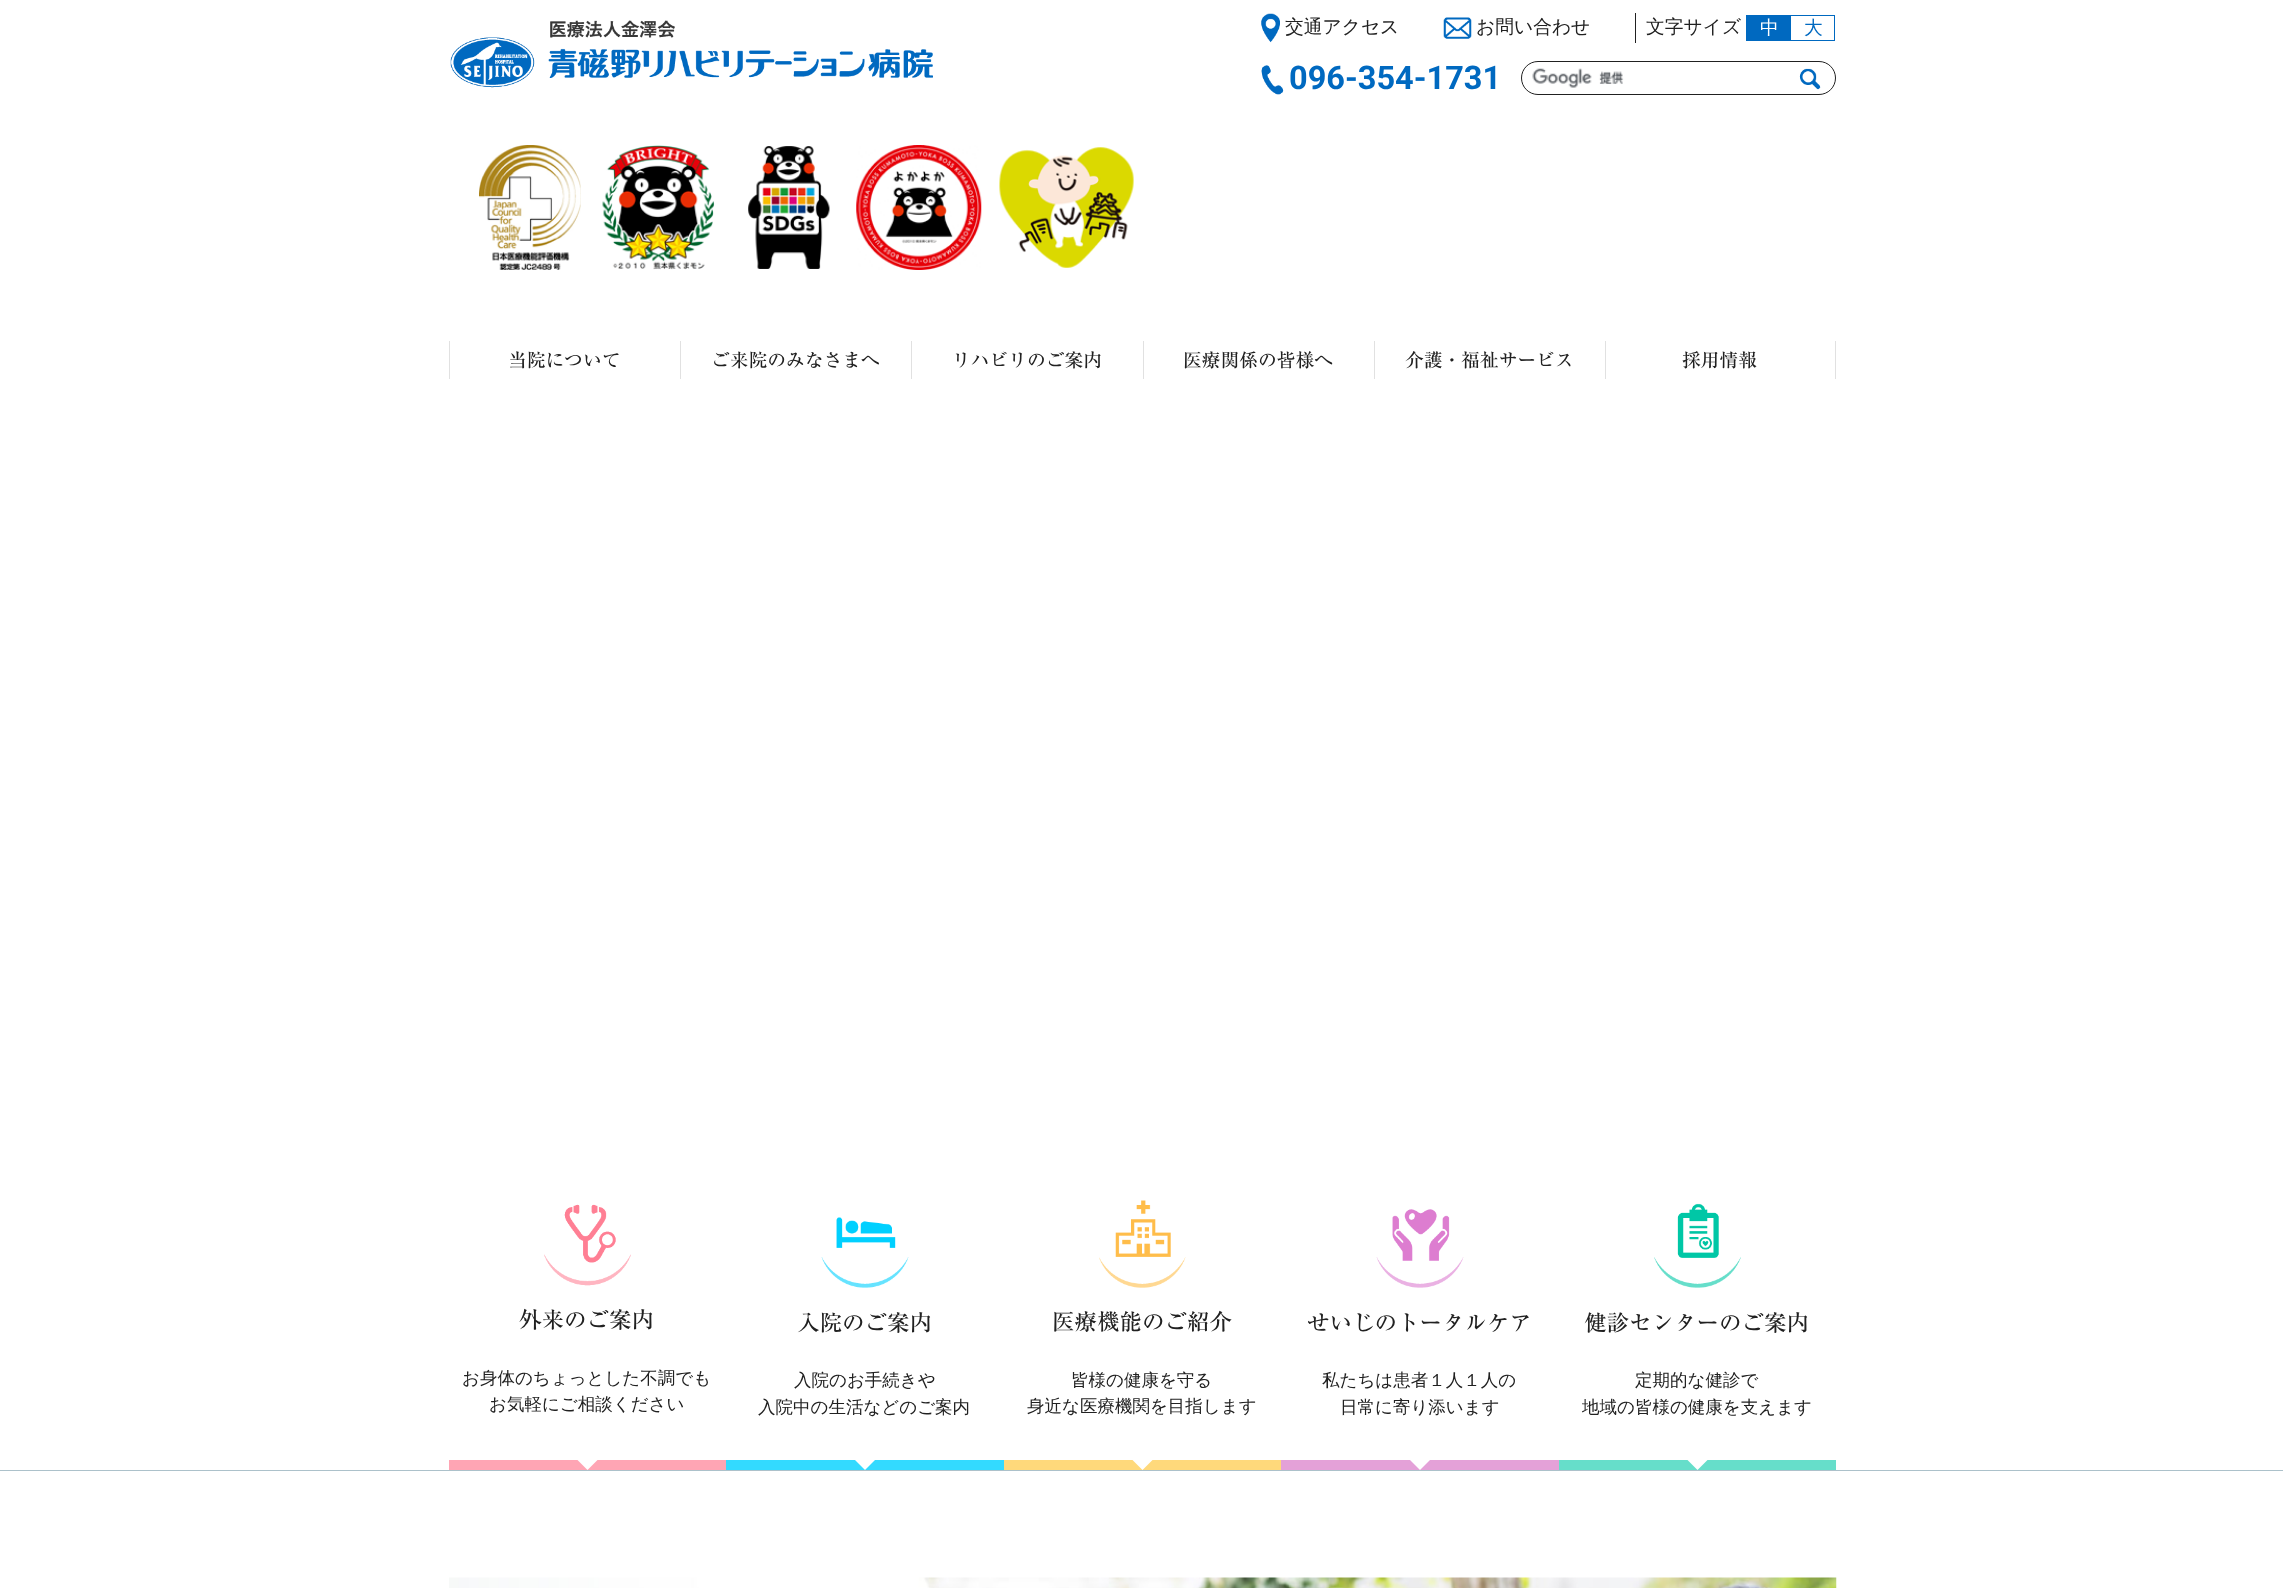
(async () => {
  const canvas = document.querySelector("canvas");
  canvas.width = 2283;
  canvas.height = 1588;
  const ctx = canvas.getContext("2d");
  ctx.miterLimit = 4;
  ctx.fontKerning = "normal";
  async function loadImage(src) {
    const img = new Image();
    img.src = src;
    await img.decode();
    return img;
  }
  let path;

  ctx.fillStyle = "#ffffff";
  ctx.fillRect(0, 0, 2283, 1588);
  ctx.drawImage(await loadImage("img/1.png"), 450, 20, 483, 68);
  ctx.drawImage(await loadImage("img/2.png"), 1261, 13, 19, 30);
  ctx.drawImage(await loadImage("img/3.png"), 1443, 17, 29, 22);
  ctx.fillStyle = "#212121";
  ctx.fillRect(1635, 13, 1, 30);
  ctx.fillStyle = "#0069c0";
  ctx.fillRect(1746, 15, 44, 26);
  ctx.strokeStyle = "#0069c0";
  ctx.strokeRect(1790.5, 15.5, 44, 25);
  ctx.drawImage(await loadImage("img/4.png"), 1261, 65, 23, 30);
  ctx.drawImage(await loadImage("img/5.png"), 1532, 68, 92, 20);
  ctx.beginPath();
  ctx.roundRect(1521.5, 61.5, 314, 33, 16.5);
  ctx.strokeStyle = "#212121";
  ctx.stroke();
  ctx.drawImage(await loadImage("img/6.png"), 1799, 68, 22, 22);
  ctx.drawImage(await loadImage("img/7.png"), 479, 145, 102, 125);
  ctx.drawImage(await loadImage("img/8.png"), 602, 145, 113, 125);
  ctx.drawImage(await loadImage("img/9.png"), 748, 146, 82, 123);
  ctx.drawImage(await loadImage("img/10.png"), 856, 145, 126, 125);
  ctx.drawImage(await loadImage("img/11.png"), 999, 147, 135, 121);
  for (const [x, y, w, h, color] of [
    [449, 341, 1, 38, "#e1e1e1"],
    [680, 341, 1, 38, "#e1e1e1"],
    [911, 341, 1, 38, "#e1e1e1"],
    [1143, 341, 1, 38, "#e1e1e1"],
    [1374, 341, 1, 38, "#e1e1e1"],
    [1605, 341, 1, 38, "#e1e1e1"],
    [1835, 341, 1, 38, "#e1e1e1"],
    [0, 1470, 2283, 1, "#acc1ca"],
    [449, 1460, 277, 10, "#ffa5b4"],
  ]) {
    ctx.fillStyle = color;
    ctx.fillRect(x, y, w, h);
  }
  ctx.drawImage(await loadImage("img/12.png"), 544, 1204, 87, 82);
  ctx.fillStyle = "#ffffff";
  path = new Path2D("M577.5 1460H597.5L587.5 1470Z");
  ctx.fill(path);
  ctx.fillStyle = "#33daff";
  ctx.fillRect(726, 1460, 278, 10);
  ctx.drawImage(await loadImage("img/13.png"), 821, 1217, 88, 71);
  ctx.fillStyle = "#ffffff";
  path = new Path2D("M855 1460H875L865 1470Z");
  ctx.fill(path);
  ctx.fillStyle = "#ffd97b";
  ctx.fillRect(1004, 1460, 277, 10);
  ctx.drawImage(await loadImage("img/14.png"), 1099, 1200, 87, 88);
  ctx.fillStyle = "#ffffff";
  path = new Path2D("M1132.5 1460H1152.5L1142.5 1470Z");
  ctx.fill(path);
  ctx.fillStyle = "#e4a1d8";
  ctx.fillRect(1281, 1460, 278, 10);
  ctx.drawImage(await loadImage("img/15.png"), 1376, 1209, 88, 79);
  ctx.fillStyle = "#ffffff";
  path = new Path2D("M1410 1460H1430L1420 1470Z");
  ctx.fill(path);
  ctx.fillStyle = "#66deca";
  ctx.fillRect(1559, 1460, 277, 10);
  ctx.drawImage(await loadImage("img/16.png"), 1654, 1203, 87, 85);
  ctx.fillStyle = "#ffffff";
  path = new Path2D("M1687.5 1460H1707.5L1697.5 1470Z");
  ctx.fill(path);
  ctx.drawImage(await loadImage("img/17.png"), 449, 1577, 1388, 11);
  ctx.font = "500 18.75px WenQuanYi Zen Hei";
  ctx.fillStyle = "#212121";
  for (const [text, x, y] of [
    ["交通アクセス", 1285, 33],
    ["お問い合わせ", 1476, 33],
    ["文字サイズ", 1646, 33],
  ]) {
    ctx.fillText(text, x, y);
  }
  ctx.fillStyle = "#ffffff";
  ctx.fillText("中", 1760, 34);
  ctx.fillStyle = "#0069c0";
  ctx.fillText("大", 1804, 34);
  ctx.font = "bold 32.5px Roboto";
  ctx.fillText("096-354-1731", 1289, 89);
  ctx.font = "18.75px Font";
  ctx.fillStyle = "#212121";
  for (const [text, x, y] of [
    ["当院について", 508, 367],
    ["ご来院のみなさまへ", 711, 367],
    ["リハビリのご案内", 952, 367],
    ["医療関係の皆様へ", 1183, 367],
    ["介護・福祉サービス", 1405, 367],
    ["採用情報", 1682, 367],
  ]) {
    ctx.fillText(text, x, y);
  }
  ctx.font = "22.5px Font";
  ctx.fillText("外来のご案内", 519, 1328);
  ctx.font = "500 17.5px WenQuanYi Zen Hei";
  ctx.fillText("お身体のちょっとした不調でも", 462, 1384);
  ctx.fillText("お気軽にご相談ください", 489, 1410);
  ctx.font = "22.5px Font";
  ctx.fillText("入院のご案内", 797, 1331);
  ctx.font = "500 17.5px WenQuanYi Zen Hei";
  ctx.fillText("入院のお手続きや", 794, 1386);
  ctx.fillText("入院中の生活などのご案内", 758, 1413);
  ctx.font = "22.5px Font";
  ctx.fillText("医療機能のご紹介", 1052, 1330);
  ctx.font = "500 17.5px WenQuanYi Zen Hei";
  ctx.fillText("皆様の健康を守る", 1071, 1386);
  ctx.fillText("身近な医療機関を目指します", 1027, 1412);
  ctx.font = "22.5px Font";
  ctx.fillText("せいじのトータルケア", 1307, 1331);
  ctx.font = "500 17.5px WenQuanYi Zen Hei";
  ctx.fillText("私たちは患者１人１人の", 1322, 1386);
  ctx.fillText("日常に寄り添います", 1340, 1413);
  ctx.font = "22.5px Font";
  ctx.fillText("健診センターのご案内", 1584, 1331);
  ctx.font = "500 17.5px WenQuanYi Zen Hei";
  ctx.fillText("定期的な健診で", 1635, 1386);
  ctx.fillText("地域の皆様の健康を支えます", 1582, 1413);
})();
